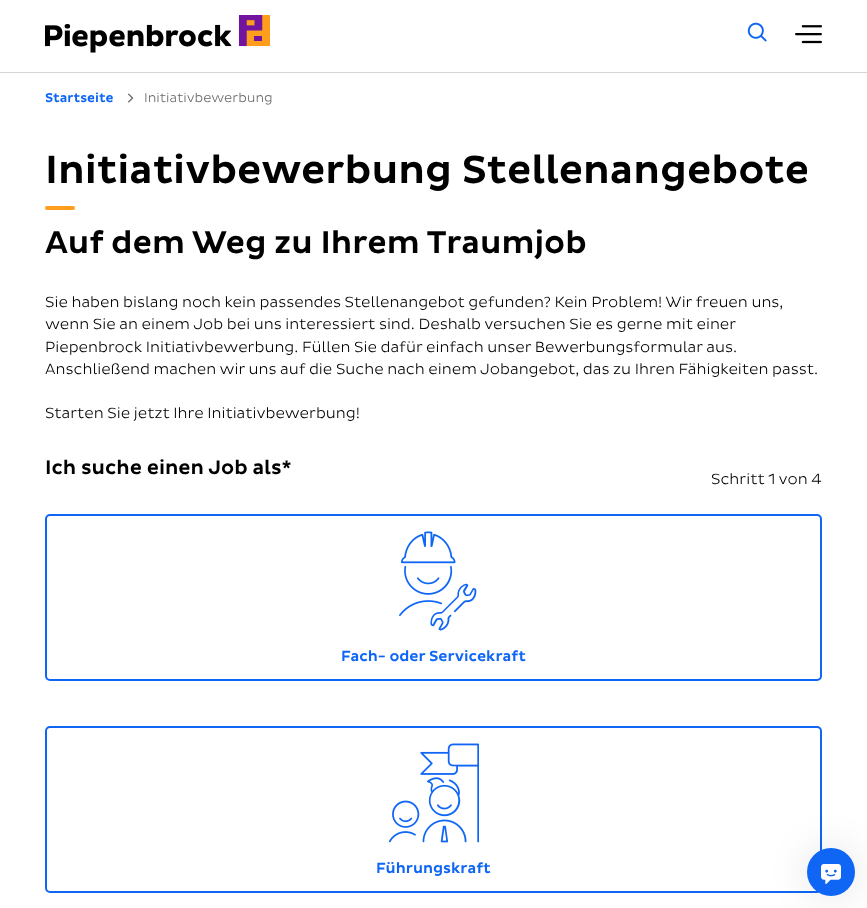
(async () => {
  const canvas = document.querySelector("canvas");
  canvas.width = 867;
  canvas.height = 908;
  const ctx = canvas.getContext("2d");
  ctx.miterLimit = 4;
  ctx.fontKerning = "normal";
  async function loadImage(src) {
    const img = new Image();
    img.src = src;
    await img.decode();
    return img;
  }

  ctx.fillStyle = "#ffffff";
  ctx.fillRect(0, 0, 867, 908);
  ctx.fillStyle = "#d5d5d9";
  ctx.fillRect(0, 72, 867, 1);
  ctx.drawImage(await loadImage("img/1.png"), 45, 15, 225, 38);
  ctx.drawImage(await loadImage("img/2.png"), 747, 22, 20, 20);
  ctx.drawImage(await loadImage("img/3.png"), 795, 25, 27, 19);
  ctx.drawImage(await loadImage("img/4.png"), 128, 93, 6, 10);
  ctx.fillStyle = "#ff9e1c";
  ctx.beginPath();
  ctx.roundRect(45, 206, 30, 4, 2);
  ctx.fill();
  ctx.beginPath();
  ctx.roundRect(46, 515, 775, 165, 4);
  ctx.strokeStyle = "#0f66f5";
  ctx.lineWidth = 2;
  ctx.stroke();
  ctx.drawImage(await loadImage("img/5.png"), 399, 531, 78, 100);
  ctx.beginPath();
  ctx.roundRect(46, 727, 775, 165, 4);
  ctx.stroke();
  ctx.drawImage(await loadImage("img/6.png"), 389, 743, 90, 100);
  ctx.fillStyle = "rgba(0, 0, 0, 0.06)";
  ctx.filter = "blur(16px)";
  ctx.beginPath();
  ctx.roundRect(799, 840, 64, 64, 32);
  ctx.fill();
  ctx.filter = "none";
  ctx.fillStyle = "#0f66f5";
  ctx.beginPath();
  ctx.arc(831, 872, 24, 0, Math.PI * 2);
  ctx.fill();
  ctx.drawImage(await loadImage("img/7.png"), 821, 864, 20, 20);
  ctx.font = "500 13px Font";
  ctx.fillText("Startseite", 45, 102);
  ctx.font = "13px Font";
  ctx.fillStyle = "#686868";
  ctx.fillText("Initiativbewerbung", 144, 102);
  ctx.font = "500 40px Font";
  ctx.fillStyle = "#000000";
  ctx.fillText("Initiativbewerbung Stellenangebote", 45, 183);
  ctx.font = "500 32px Font";
  ctx.fillText("Auf dem Weg zu Ihrem Traumjob", 45, 253);
  ctx.font = "15px Font";
  for (const [text, x, y] of [
    ["Sie haben bislang noch kein passendes Stellenangebot gefunden? Kein Problem! Wir freuen uns,", 45, 307],
    ["wenn Sie an einem Job bei uns interessiert sind. Deshalb versuchen Sie es gerne mit einer", 45, 329],
    ["Piepenbrock Initiativbewerbung. Füllen Sie dafür einfach unser Bewerbungsformular aus.", 45, 352],
    ["Anschließend machen wir uns auf die Suche nach einem Jobangebot, das zu Ihren Fähigkeiten passt.", 45, 374],
    ["Starten Sie jetzt Ihre Initiativbewerbung!", 45, 418],
  ]) {
    ctx.fillText(text, x, y);
  }
  ctx.font = "500 20px Font";
  ctx.fillText("Ich suche einen Job als*", 45, 474);
  ctx.font = "15px Font";
  ctx.fillText("Schritt 1 von 4", 711, 484);
  ctx.font = "500 15px Font";
  ctx.fillStyle = "#0f66f5";
  ctx.fillText("Fach- oder Servicekraft", 341, 661);
  ctx.fillText("Führungskraft", 376, 873);
})();
